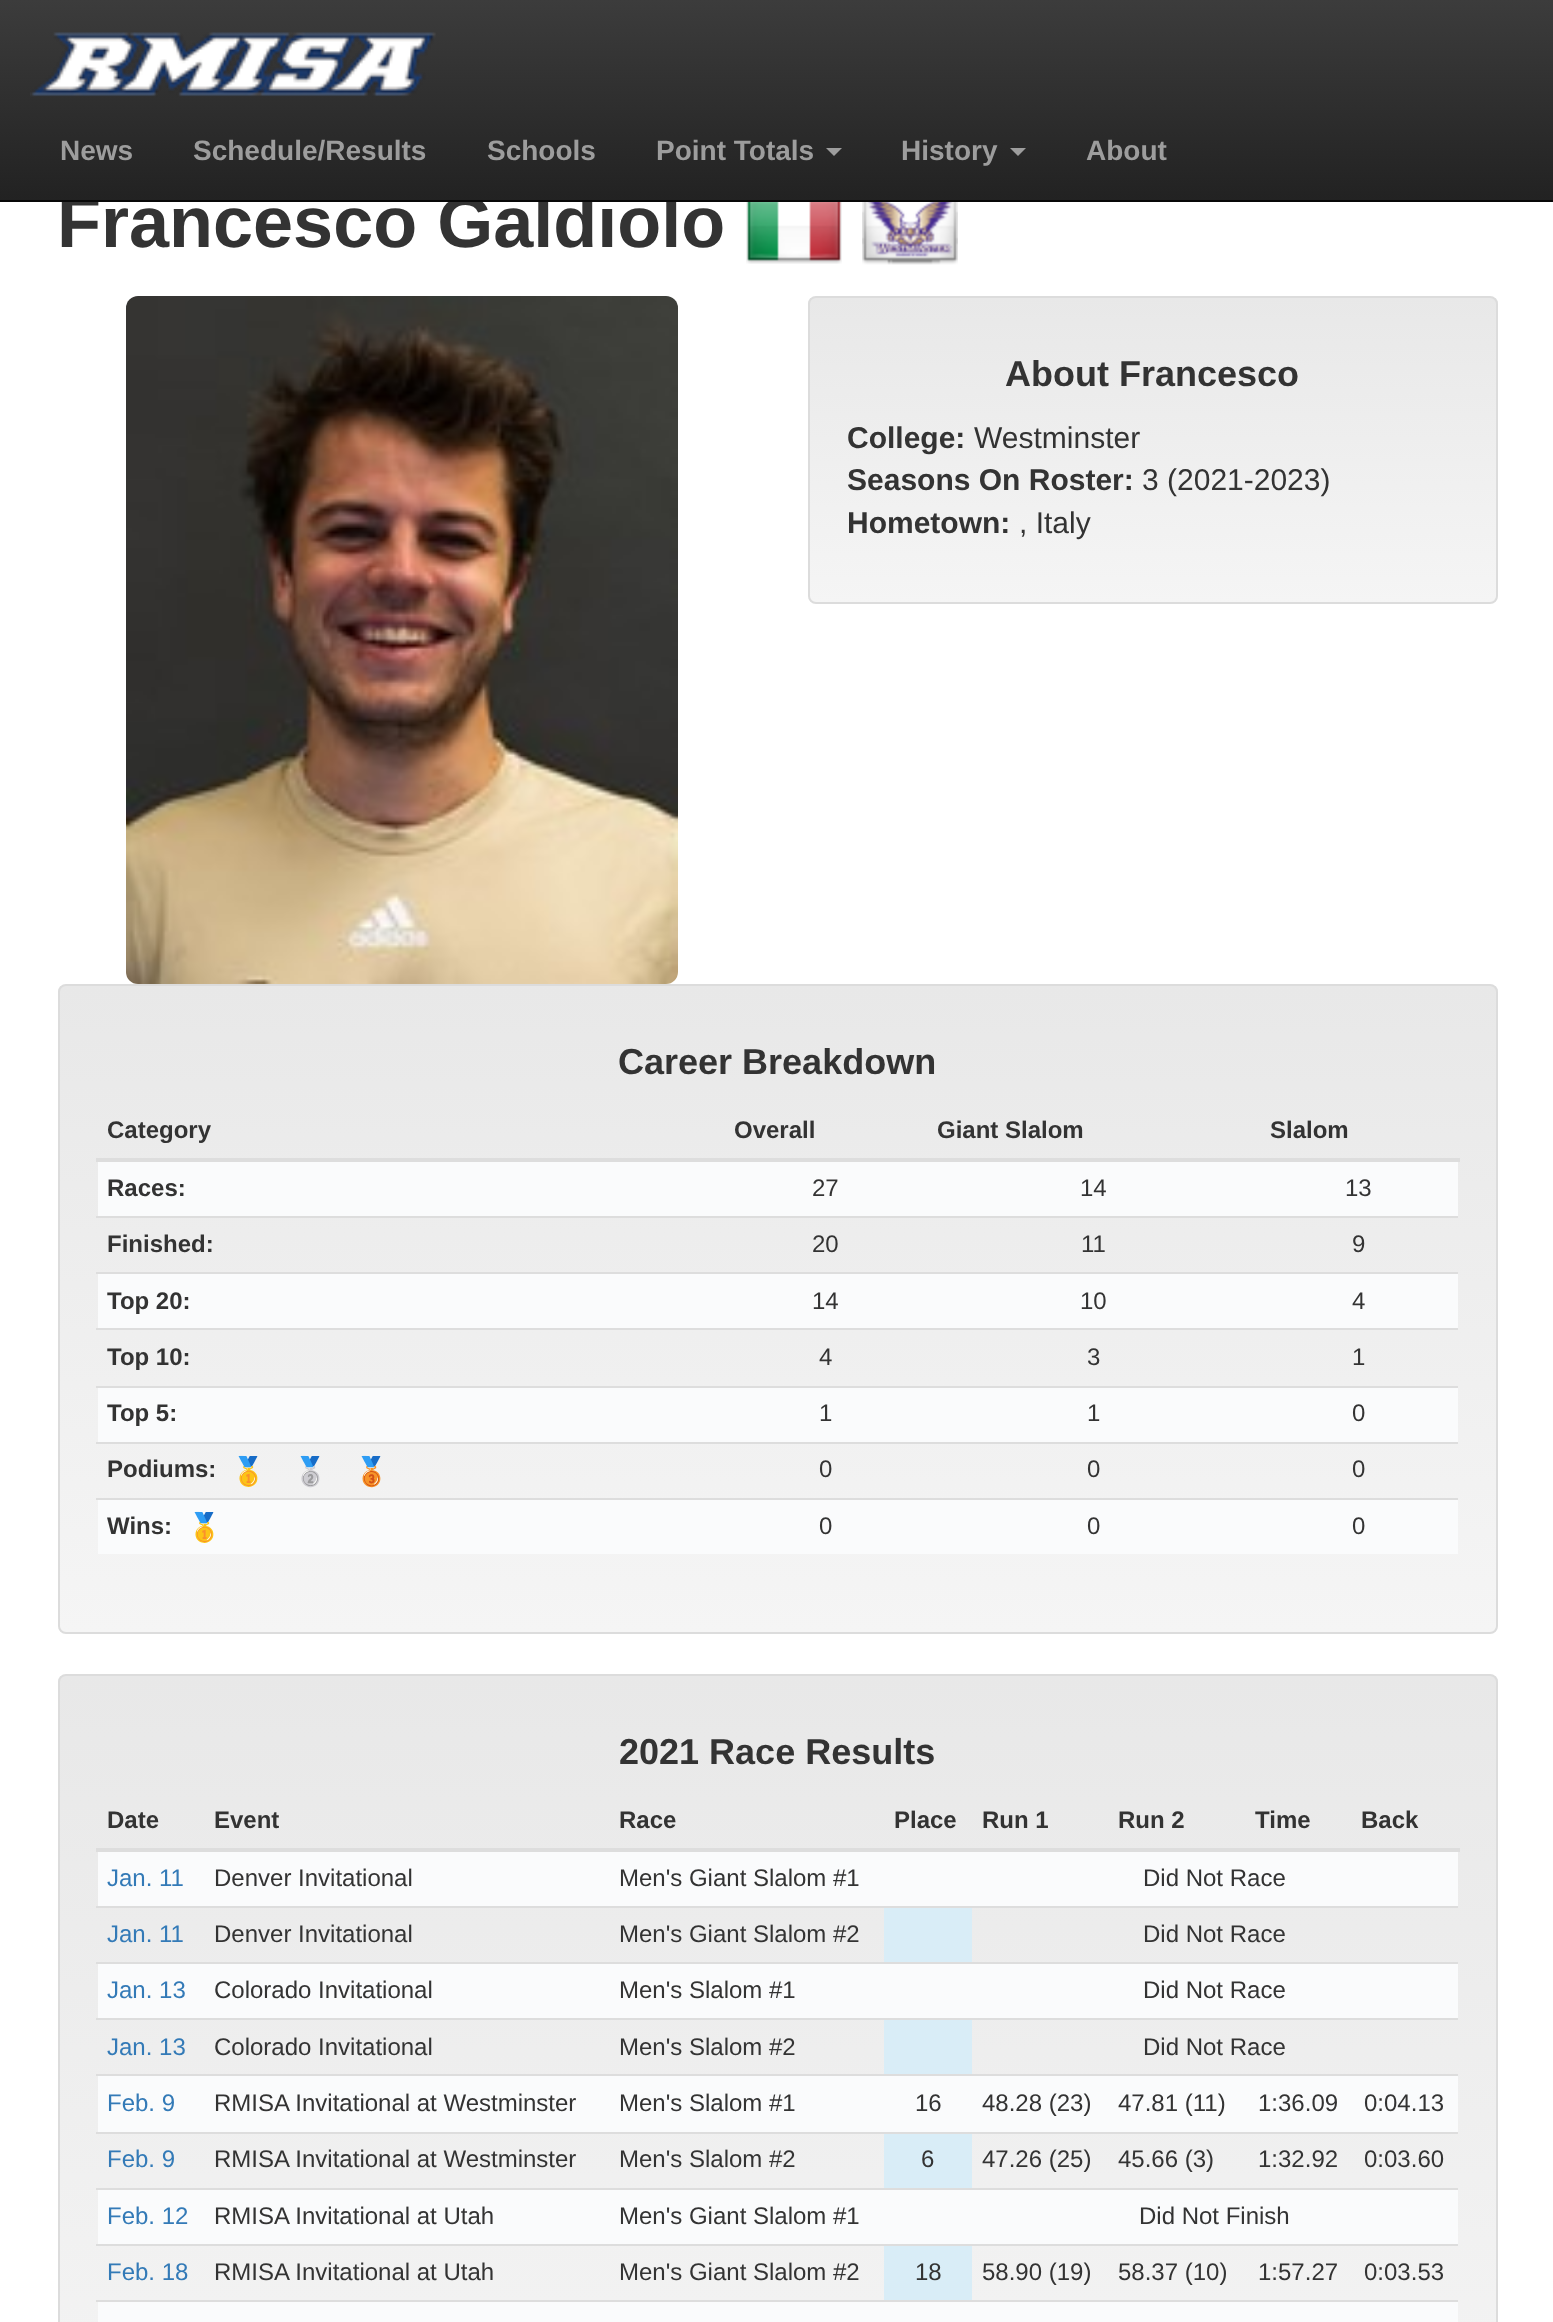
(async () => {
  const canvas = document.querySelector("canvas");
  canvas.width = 1553;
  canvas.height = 2322;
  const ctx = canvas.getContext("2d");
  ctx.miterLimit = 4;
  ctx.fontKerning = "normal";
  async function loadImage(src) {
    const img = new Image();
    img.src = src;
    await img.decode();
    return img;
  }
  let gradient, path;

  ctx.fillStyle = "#ffffff";
  ctx.fillRect(0, 0, 1553, 2322);
  ctx.drawImage(await loadImage("img/2.png"), 746, 202, 96, 62);
  ctx.drawImage(await loadImage("img/3.png"), 862, 202, 96, 63);
  ctx.drawImage(await loadImage("img/4.png"), 126, 296, 552, 688);
  ctx.save();
  ctx.beginPath();
  ctx.roundRect(808, 296, 690, 308, 8);
  ctx.clip();
  gradient = ctx.createLinearGradient(1153, 298, 1153, 602);
  gradient.addColorStop(0, "#e8e8e8");
  gradient.addColorStop(1, "#f5f5f5");
  ctx.fillStyle = gradient;
  ctx.fillRect(808, 298, 690, 304);
  ctx.restore();
  ctx.beginPath();
  ctx.roundRect(809, 297, 688, 306, 7);
  ctx.strokeStyle = "#dcdcdc";
  ctx.lineWidth = 2;
  ctx.stroke();
  ctx.save();
  ctx.beginPath();
  ctx.roundRect(58, 984, 1440, 650, 8);
  ctx.clip();
  gradient = ctx.createLinearGradient(778, 986, 778, 1632);
  gradient.addColorStop(0, "#e8e8e8");
  gradient.addColorStop(1, "#f5f5f5");
  ctx.fillStyle = gradient;
  ctx.fillRect(58, 986, 1440, 646);
  ctx.restore();
  ctx.beginPath();
  ctx.roundRect(59, 985, 1438, 648, 7);
  ctx.stroke();
  for (const [x, y, w, h, color] of [
    [96, 1158, 1364, 4, "#dddddd"],
    [98, 1162, 1360, 54, "#fafbfc"],
    [96, 1216, 1362, 2, "#dddddd"],
    [98, 1274, 1360, 54, "#fafbfc"],
    [96, 1272, 1362, 2, "#dddddd"],
    [96, 1328, 1362, 2, "#dddddd"],
    [98, 1388, 1360, 54, "#fafbfc"],
    [96, 1386, 1362, 2, "#dddddd"],
    [96, 1442, 1362, 2, "#dddddd"],
    [98, 1500, 1360, 54, "#fafbfc"],
    [96, 1498, 1362, 2, "#dddddd"],
  ]) {
    ctx.fillStyle = color;
    ctx.fillRect(x, y, w, h);
  }
  ctx.save();
  ctx.beginPath();
  ctx.roundRect(58, 1674, 1440, 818, 8);
  ctx.clip();
  gradient = ctx.createLinearGradient(778, 1676, 778, 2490);
  gradient.addColorStop(0, "#e8e8e8");
  gradient.addColorStop(1, "#f5f5f5");
  ctx.fillStyle = gradient;
  ctx.fillRect(58, 1676, 1440, 646);
  ctx.restore();
  ctx.beginPath();
  ctx.roundRect(59, 1675, 1438, 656, 7);
  ctx.stroke();
  for (const [x, y, w, h, color] of [
    [96, 1848, 1364, 4, "#dddddd"],
    [98, 1852, 1360, 54, "#fafbfc"],
    [884, 1908, 88, 54, "#d9edf7"],
    [96, 1906, 1362, 2, "#dddddd"],
    [98, 1964, 1360, 54, "#fafbfc"],
    [96, 1962, 1362, 2, "#dddddd"],
    [884, 2020, 88, 54, "#d9edf7"],
    [96, 2018, 1362, 2, "#dddddd"],
    [98, 2076, 1360, 56, "#fafbfc"],
    [96, 2074, 1362, 2, "#dddddd"],
    [884, 2134, 88, 54, "#d9edf7"],
    [96, 2132, 1362, 2, "#dddddd"],
    [98, 2190, 1360, 54, "#fafbfc"],
    [96, 2188, 1362, 2, "#dddddd"],
    [884, 2246, 88, 54, "#d9edf7"],
    [96, 2244, 1362, 2, "#dddddd"],
    [96, 2300, 1362, 2, "#dddddd"],
    [98, 2302, 1360, 20, "#fafbfc"],
  ]) {
    ctx.fillStyle = color;
    ctx.fillRect(x, y, w, h);
  }
  ctx.font = "bold 72px Liberation Sans";
  ctx.fillStyle = "#333333";
  ctx.fillText("Francesco Galdiolo", 57, 247);
  gradient = ctx.createLinearGradient(777, 0, 777, 200);
  gradient.addColorStop(0, "#3c3c3c");
  gradient.addColorStop(1, "#222222");
  ctx.fillStyle = gradient;
  ctx.fillRect(0, 0, 1553, 200);
  ctx.font = "bold 28px Liberation Sans";
  ctx.fillStyle = "#9d9d9d";
  ctx.fillText("About", 1086, 160);
  path = new Path2D("M1010 148H1026L1018 156Z");
  ctx.fill(path);
  ctx.fillText("History", 901, 160);
  path = new Path2D("M826 148H842L834 156Z");
  ctx.fill(path);
  for (const [text, x, y] of [
    ["Point Totals", 656, 160],
    ["Schools", 487, 160],
    ["Schedule/Results", 193, 160],
    ["News", 60, 160],
  ]) {
    ctx.fillText(text, x, y);
  }
  ctx.drawImage(await loadImage("img/1.png"), 30, 32, 406, 65);
  ctx.fillStyle = "#080808";
  ctx.fillRect(0, 200, 1553, 2);
  ctx.font = "bold 36px Liberation Sans";
  ctx.fillStyle = "#333333";
  ctx.fillText("About Francesco", 1005, 386);
  ctx.font = "bold 30px Liberation Sans";
  ctx.fillText("College:", 847, 448);
  ctx.font = "30px Liberation Sans";
  ctx.fillText("Westminster", 974, 448);
  ctx.font = "bold 30px Liberation Sans";
  ctx.fillText("Seasons On Roster:", 847, 490);
  ctx.font = "30px Liberation Sans";
  ctx.fillText("3 (2021-2023)", 1142, 490);
  ctx.font = "bold 30px Liberation Sans";
  ctx.fillText("Hometown:", 847, 533);
  ctx.font = "30px Liberation Sans";
  ctx.fillText(", Italy", 1019, 533);
  ctx.font = "bold 36px Liberation Sans";
  ctx.fillText("Career Breakdown", 618, 1074);
  ctx.font = "bold 24px Liberation Sans";
  for (const [text, x, y] of [
    ["Category", 107, 1138],
    ["Overall", 734, 1138],
    ["Giant Slalom", 937, 1138],
    ["Slalom", 1270, 1138],
    ["Races:", 107, 1196],
  ]) {
    ctx.fillText(text, x, y);
  }
  ctx.font = "24px Liberation Sans";
  for (const [text, x, y] of [
    ["27", 812, 1196],
    ["14", 1080, 1196],
    ["13", 1345, 1196],
  ]) {
    ctx.fillText(text, x, y);
  }
  ctx.font = "bold 24px Liberation Sans";
  ctx.fillText("Finished:", 107, 1252);
  ctx.font = "24px Liberation Sans";
  for (const [text, x, y] of [
    ["20", 812, 1252],
    ["11", 1081, 1252],
    ["9", 1352, 1252],
  ]) {
    ctx.fillText(text, x, y);
  }
  ctx.font = "bold 24px Liberation Sans";
  ctx.fillText("Top 20:", 107, 1309);
  ctx.font = "24px Liberation Sans";
  for (const [text, x, y] of [
    ["14", 812, 1309],
    ["10", 1080, 1309],
    ["4", 1352, 1309],
  ]) {
    ctx.fillText(text, x, y);
  }
  ctx.font = "bold 24px Liberation Sans";
  ctx.fillText("Top 10:", 107, 1365);
  ctx.font = "24px Liberation Sans";
  for (const [text, x, y] of [
    ["4", 819, 1365],
    ["3", 1087, 1365],
    ["1", 1352, 1365],
  ]) {
    ctx.fillText(text, x, y);
  }
  ctx.font = "bold 24px Liberation Sans";
  ctx.fillText("Top 5:", 107, 1421);
  ctx.font = "24px Liberation Sans";
  for (const [text, x, y] of [
    ["1", 819, 1421],
    ["1", 1087, 1421],
    ["0", 1352, 1421],
  ]) {
    ctx.fillText(text, x, y);
  }
  ctx.font = "bold 24px Liberation Sans";
  ctx.fillText("Podiums:", 107, 1477);
  ctx.font = "28px Noto Color Emoji";
  for (const [text, x, y] of [
    ["🥇", 231, 1481],
    ["🥈", 293, 1481],
    ["🥉", 354, 1481],
  ]) {
    ctx.fillText(text, x, y);
  }
  ctx.font = "24px Liberation Sans";
  for (const [text, x, y] of [
    ["0", 819, 1477],
    ["0", 1087, 1477],
    ["0", 1352, 1477],
  ]) {
    ctx.fillText(text, x, y);
  }
  ctx.font = "bold 24px Liberation Sans";
  ctx.fillText("Wins:", 107, 1534);
  ctx.font = "28px Noto Color Emoji";
  ctx.fillText("🥇", 187, 1537);
  ctx.font = "24px Liberation Sans";
  for (const [text, x, y] of [
    ["0", 819, 1534],
    ["0", 1087, 1534],
    ["0", 1352, 1534],
  ]) {
    ctx.fillText(text, x, y);
  }
  ctx.font = "bold 36px Liberation Sans";
  ctx.fillText("2021 Race Results", 619, 1764);
  ctx.font = "bold 24px Liberation Sans";
  for (const [text, x, y] of [
    ["Date", 107, 1828],
    ["Event", 214, 1828],
    ["Race", 619, 1828],
    ["Place", 894, 1828],
    ["Run 1", 982, 1828],
    ["Run 2", 1118, 1828],
    ["Time", 1255, 1828],
    ["Back", 1361, 1828],
  ]) {
    ctx.fillText(text, x, y);
  }
  ctx.font = "24px Liberation Sans";
  ctx.fillStyle = "#337ab7";
  ctx.fillText("Jan. 11", 107, 1886);
  ctx.fillStyle = "#333333";
  for (const [text, x, y] of [
    ["Denver Invitational", 214, 1886],
    ["Men's Giant Slalom #1", 619, 1886],
    ["Did Not Race", 1143, 1886],
  ]) {
    ctx.fillText(text, x, y);
  }
  ctx.fillStyle = "#337ab7";
  ctx.fillText("Jan. 11", 107, 1942);
  ctx.fillStyle = "#333333";
  for (const [text, x, y] of [
    ["Denver Invitational", 214, 1942],
    ["Men's Giant Slalom #2", 619, 1942],
    ["Did Not Race", 1143, 1942],
  ]) {
    ctx.fillText(text, x, y);
  }
  ctx.fillStyle = "#337ab7";
  ctx.fillText("Jan. 13", 107, 1998);
  ctx.fillStyle = "#333333";
  for (const [text, x, y] of [
    ["Colorado Invitational", 214, 1998],
    ["Men's Slalom #1", 619, 1998],
    ["Did Not Race", 1143, 1998],
  ]) {
    ctx.fillText(text, x, y);
  }
  ctx.fillStyle = "#337ab7";
  ctx.fillText("Jan. 13", 107, 2055);
  ctx.fillStyle = "#333333";
  for (const [text, x, y] of [
    ["Colorado Invitational", 214, 2055],
    ["Men's Slalom #2", 619, 2055],
    ["Did Not Race", 1143, 2055],
  ]) {
    ctx.fillText(text, x, y);
  }
  ctx.fillStyle = "#337ab7";
  ctx.fillText("Feb. 9", 107, 2111);
  ctx.fillStyle = "#333333";
  for (const [text, x, y] of [
    ["RMISA Invitational at Westminster", 214, 2111],
    ["Men's Slalom #1", 619, 2111],
    ["16", 915, 2111],
    ["48.28 (23)", 982, 2111],
    ["47.81 (11)", 1118, 2111],
    ["1:36.09", 1258, 2111],
    ["0:04.13", 1364, 2111],
  ]) {
    ctx.fillText(text, x, y);
  }
  ctx.fillStyle = "#337ab7";
  ctx.fillText("Feb. 9", 107, 2167);
  ctx.fillStyle = "#333333";
  for (const [text, x, y] of [
    ["RMISA Invitational at Westminster", 214, 2167],
    ["Men's Slalom #2", 619, 2167],
    ["6", 921, 2167],
    ["47.26 (25)", 982, 2167],
    ["45.66 (3)", 1118, 2167],
    ["1:32.92", 1258, 2167],
    ["0:03.60", 1364, 2167],
  ]) {
    ctx.fillText(text, x, y);
  }
  ctx.fillStyle = "#337ab7";
  ctx.fillText("Feb. 12", 107, 2224);
  ctx.fillStyle = "#333333";
  for (const [text, x, y] of [
    ["RMISA Invitational at Utah", 214, 2224],
    ["Men's Giant Slalom #1", 619, 2224],
    ["Did Not Finish", 1139, 2224],
  ]) {
    ctx.fillText(text, x, y);
  }
  ctx.fillStyle = "#337ab7";
  ctx.fillText("Feb. 18", 107, 2280);
  ctx.fillStyle = "#333333";
  for (const [text, x, y] of [
    ["RMISA Invitational at Utah", 214, 2280],
    ["Men's Giant Slalom #2", 619, 2280],
    ["18", 915, 2280],
    ["58.90 (19)", 982, 2280],
    ["58.37 (10)", 1118, 2280],
    ["1:57.27", 1258, 2280],
    ["0:03.53", 1364, 2280],
  ]) {
    ctx.fillText(text, x, y);
  }
})();
